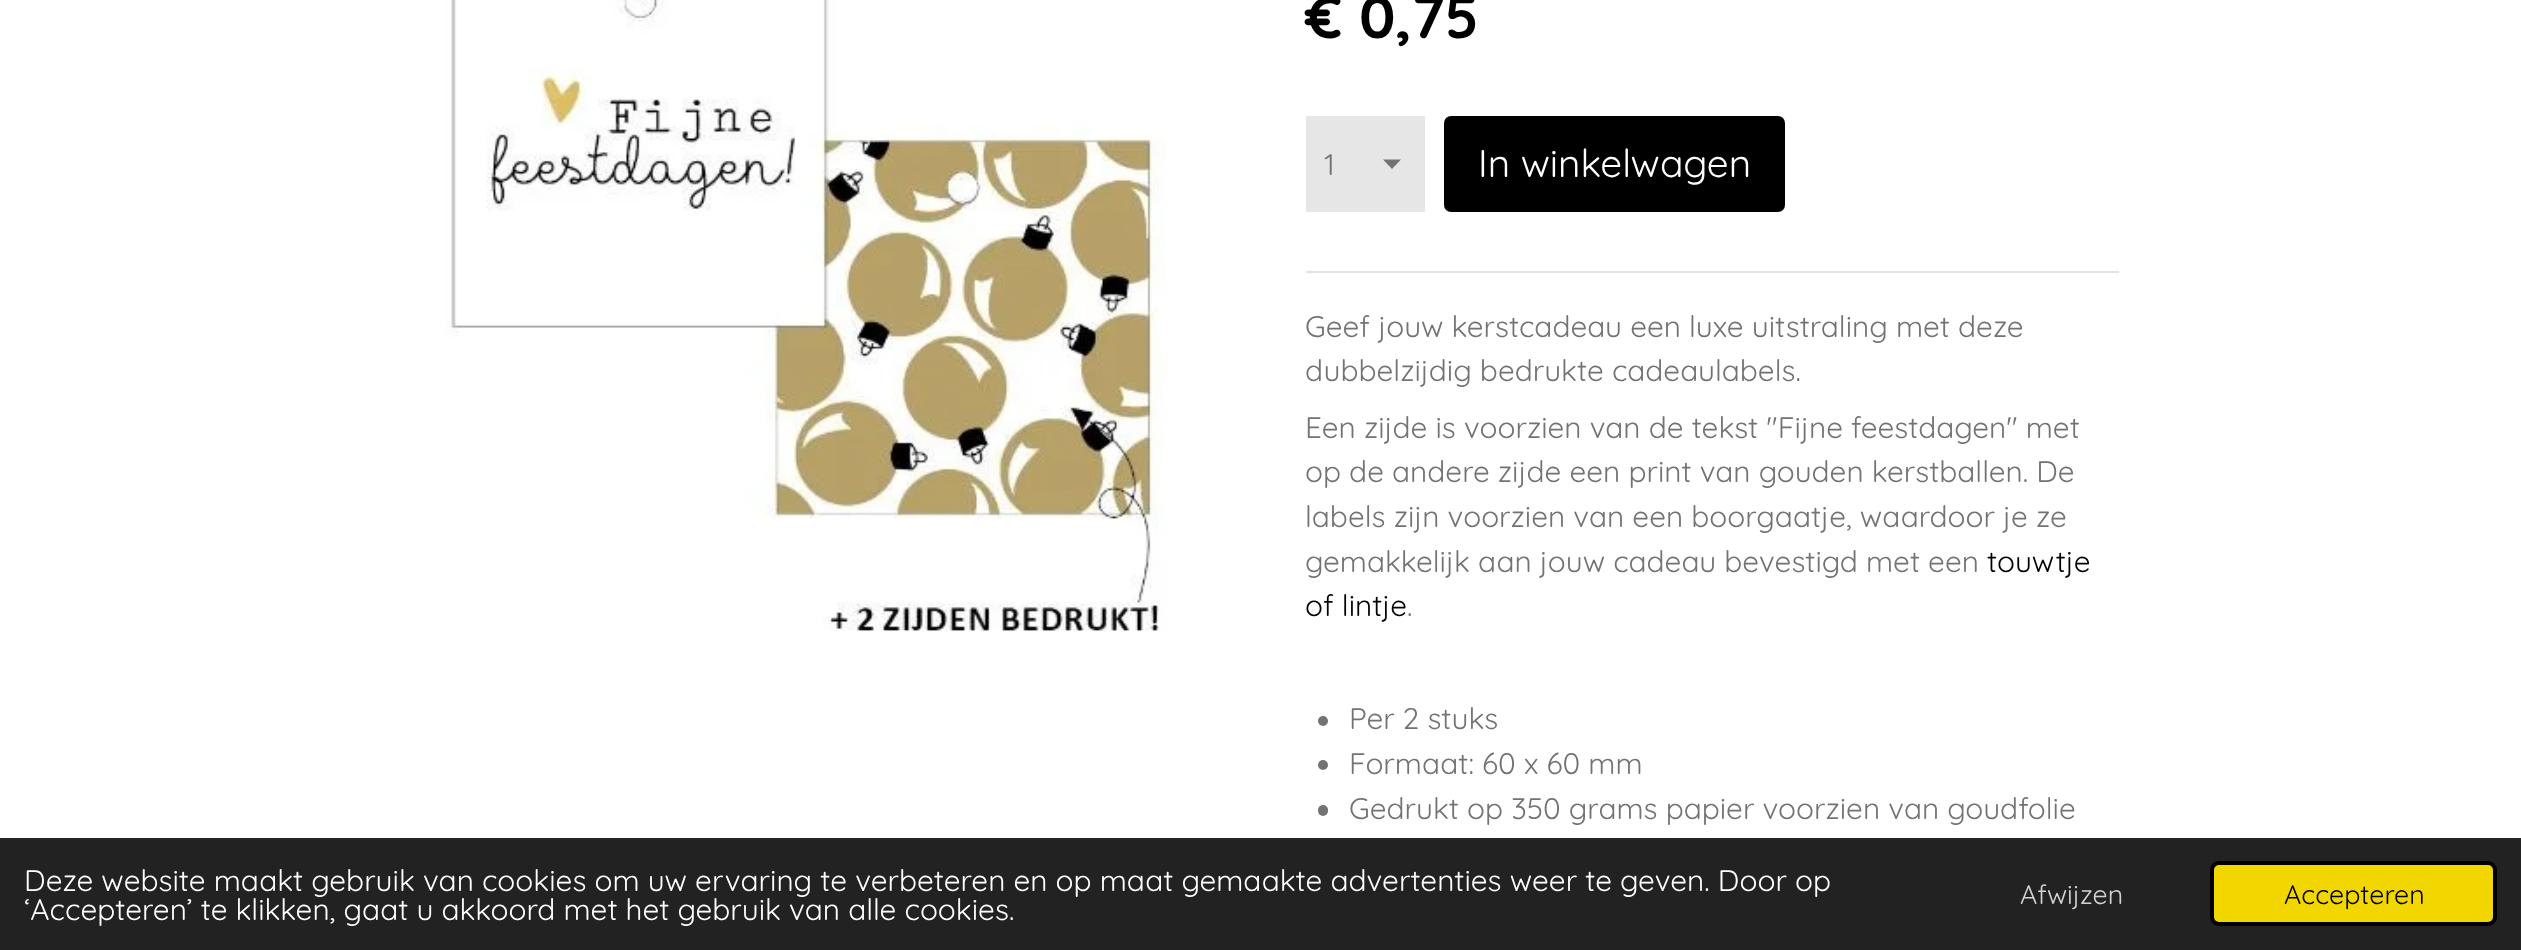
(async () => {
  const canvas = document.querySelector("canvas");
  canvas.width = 2521;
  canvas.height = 950;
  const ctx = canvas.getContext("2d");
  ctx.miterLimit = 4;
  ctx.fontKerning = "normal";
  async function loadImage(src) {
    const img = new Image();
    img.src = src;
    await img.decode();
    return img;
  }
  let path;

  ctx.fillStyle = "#ffffff";
  ctx.fillRect(0, 0, 2521, 950);
  ctx.drawImage(await loadImage("img/1.png"), 445, 0, 721, 631);
  ctx.fillStyle = "#e6e6e6";
  ctx.fillRect(1306, 116, 119, 96);
  ctx.fillStyle = "#737373";
  path = new Path2D("M1392 169L1383 159.5H1401Z");
  ctx.fill(path);
  ctx.fillStyle = "#000000";
  ctx.beginPath();
  ctx.roundRect(1444, 116, 341, 96, 7);
  ctx.fill();
  ctx.fillStyle = "#e3e3e3";
  ctx.fillRect(1306, 271, 813, 2);
  ctx.fillStyle = "#737373";
  ctx.beginPath();
  ctx.arc(1323, 721, 5, 0, Math.PI * 2);
  ctx.fill();
  ctx.beginPath();
  ctx.arc(1323, 765, 5, 0, Math.PI * 2);
  ctx.fill();
  ctx.beginPath();
  ctx.roundRect(1318, 805, 10, 11, 5);
  ctx.fill();
  ctx.fillStyle = "#222222";
  ctx.fillRect(0, 838, 2521, 112);
  ctx.fillStyle = "#f1d600";
  ctx.beginPath();
  ctx.roundRect(2212, 863, 283, 61, 7);
  ctx.fill();
  ctx.strokeStyle = "#000000";
  ctx.lineWidth = 4;
  ctx.stroke();
  ctx.font = "bold 59.5px Quicksand";
  ctx.fillStyle = "#000000";
  ctx.fillText("€ 0,75", 1305, 38);
  ctx.font = "29.75px Quicksand";
  ctx.fillStyle = "#737373";
  ctx.fillText("1", 1324, 175);
  ctx.font = "38.75px Quicksand";
  ctx.fillStyle = "#ffffff";
  ctx.fillText("In winkelwagen", 1478, 177);
  ctx.font = "29.75px Quicksand";
  ctx.fillStyle = "#737373";
  for (const [text, x, y] of [
    ["Geef jouw kerstcadeau een luxe uitstraling met deze", 1305, 337],
    ["dubbelzijdig bedrukte cadeaulabels.", 1305, 381],
    ["Een zijde is voorzien van de tekst \"Fijne feestdagen\" met", 1305, 438],
    ["op de andere zijde een print van gouden kerstballen. De", 1305, 482],
    ["labels zijn voorzien van een boorgaatje, waardoor je ze", 1305, 527],
    ["gemakkelijk aan jouw cadeau bevestigd met een", 1305, 572],
  ]) {
    ctx.fillText(text, x, y);
  }
  ctx.fillStyle = "#000000";
  ctx.fillText("touwtje", 1987, 572);
  ctx.fillText("of lintje", 1305, 616);
  ctx.fillStyle = "#737373";
  for (const [text, x, y] of [
    [".", 1407, 616],
    ["Per 2 stuks", 1349, 729],
    ["Formaat: 60 x 60 mm", 1349, 774],
    ["Gedrukt op 350 grams papier voorzien van goudfolie", 1349, 819],
  ]) {
    ctx.fillText(text, x, y);
  }
  ctx.fillStyle = "#ffffff";
  ctx.fillText("Deze website maakt gebruik van cookies om uw ervaring te verbeteren en op maat gemaakte advertenties weer te geven. Door op", 24, 891);
  ctx.fillText("‘Accepteren’ te klikken, gaat u akkoord met het gebruik van alle cookies.", 24, 920);
  ctx.font = "26.75px Quicksand";
  ctx.fillStyle = "#d3d3d3";
  ctx.fillText("Afwijzen", 2020, 904);
  ctx.fillStyle = "#000000";
  ctx.fillText("Accepteren", 2284, 904);
})();
